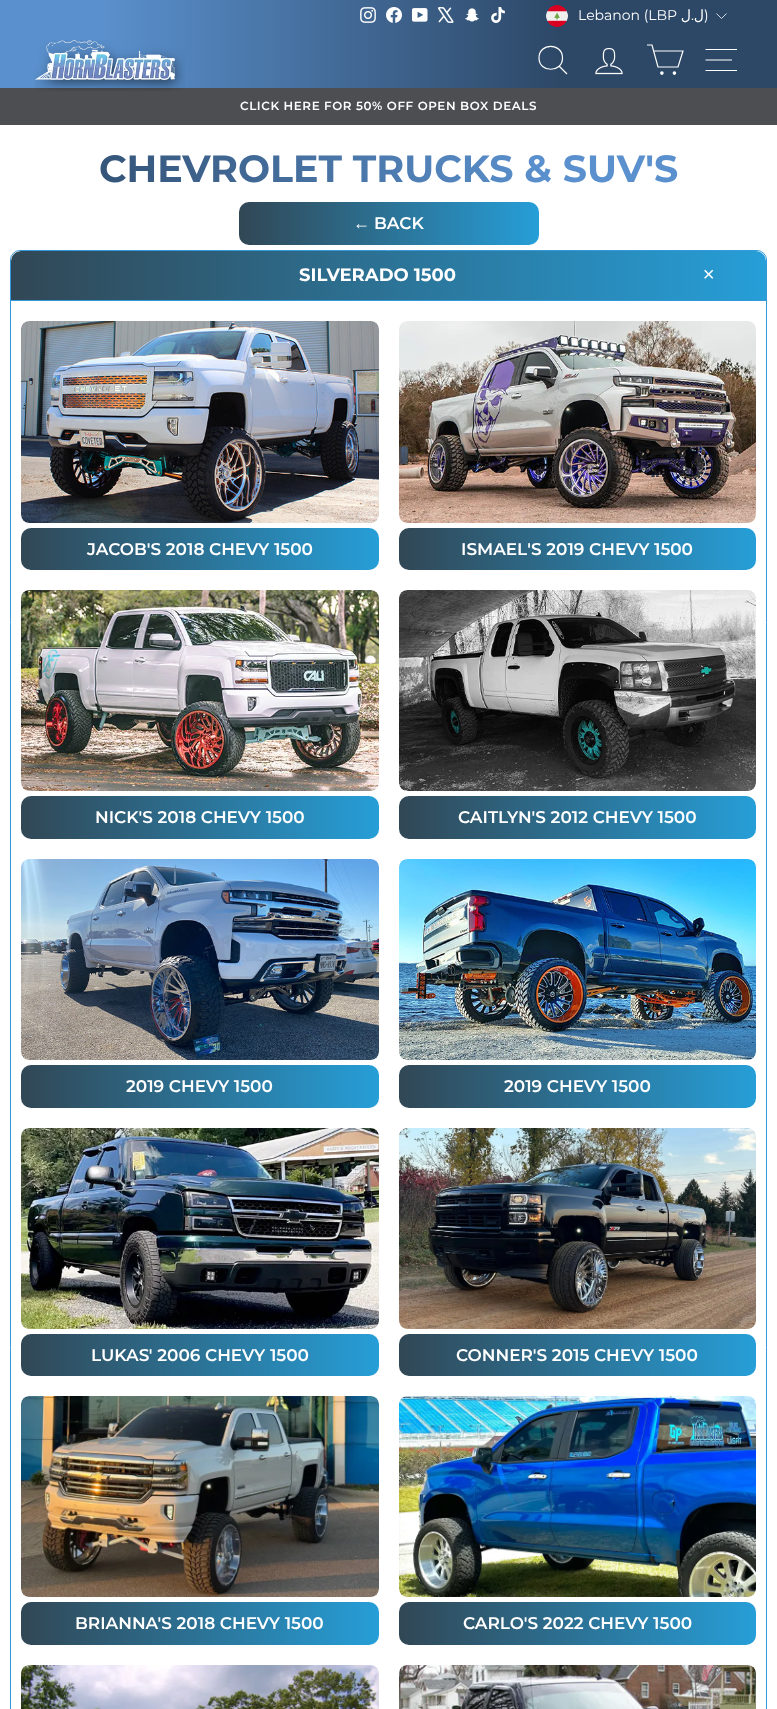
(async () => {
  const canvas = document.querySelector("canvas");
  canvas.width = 777;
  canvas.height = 1709;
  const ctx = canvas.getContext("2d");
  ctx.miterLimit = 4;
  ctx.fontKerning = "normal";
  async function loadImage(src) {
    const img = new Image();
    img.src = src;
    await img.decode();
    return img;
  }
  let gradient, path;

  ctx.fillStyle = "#ffffff";
  ctx.fillRect(0, 0, 777, 1709);
  gradient = ctx.createLinearGradient(0, 16, 777, 16);
  gradient.addColorStop(0.13, "#5a90cd");
  gradient.addColorStop(0.72, "#2d4867");
  ctx.fillStyle = gradient;
  ctx.fillRect(0, 0, 777, 32);
  ctx.drawImage(await loadImage("img/1.png"), 360, 7, 16, 16);
  ctx.drawImage(await loadImage("img/2.png"), 386, 7, 16, 16);
  ctx.drawImage(await loadImage("img/3.png"), 412, 8, 16, 14);
  ctx.drawImage(await loadImage("img/4.png"), 438, 7, 16, 16);
  ctx.drawImage(await loadImage("img/5.png"), 465, 8, 14, 14);
  ctx.drawImage(await loadImage("img/6.png"), 491, 7, 14, 16);
  ctx.drawImage(await loadImage("img/7.png"), 546, 5, 22, 22);
  path = new Path2D("M716.5 13.5L721.5 18.5L726.5 13.5");
  ctx.strokeStyle = "#ffffff";
  ctx.lineWidth = 0.8;
  ctx.stroke(path);
  gradient = ctx.createLinearGradient(0, 60, 777, 60);
  gradient.addColorStop(0.13, "#5a90cd");
  gradient.addColorStop(0.72, "#2d4867");
  ctx.fillStyle = gradient;
  ctx.fillRect(0, 32, 777, 56);
  ctx.fillStyle = "#4c4e52";
  ctx.fillRect(0, 88, 777, 37);
  ctx.drawImage(await loadImage("img/8.png"), 34, 40, 151, 51);
  path = new Path2D("M562.5 58C562.5 73 539 73 539 58C539 42.5 562.5 42.5 562.5 58ZM567 74L559 66");
  ctx.lineWidth = 1.2;
  ctx.stroke(path);
  ctx.drawImage(await loadImage("img/9.png"), 595, 48, 28, 27);
  path = new Path2D("M654 51H683L678 67H658L652 45H647");
  ctx.stroke(path);
  ctx.fillStyle = "#ffffff";
  ctx.beginPath();
  ctx.arc(661.9, 73.1, 1.2, 0, Math.PI * 2);
  ctx.fill();
  ctx.stroke();
  ctx.beginPath();
  ctx.arc(674.4, 73.1, 1.2, 0, Math.PI * 2);
  ctx.fill();
  ctx.stroke();
  path = new Path2D("M705.5 49.5H737M705.5 60H732M705.5 70.5H737");
  ctx.stroke(path);
  gradient = ctx.createLinearGradient(239, 224, 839, 223);
  gradient.addColorStop(0, "#314755");
  gradient.addColorStop(0.51, "#26a0da");
  gradient.addColorStop(1, "#314755");
  ctx.fillStyle = gradient;
  ctx.beginPath();
  ctx.roundRect(239, 202, 300, 43, 10);
  ctx.fill();
  ctx.beginPath();
  ctx.roundRect(10.5, 250.5, 756, 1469, 9.5);
  ctx.strokeStyle = "#3598db";
  ctx.lineWidth = 1;
  ctx.stroke();
  ctx.save();
  ctx.beginPath();
  ctx.roundRect(11, 251, 755, 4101, 9);
  ctx.clip();
  gradient = ctx.createLinearGradient(11, 276, 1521, 275);
  gradient.addColorStop(0, "#314755");
  gradient.addColorStop(0.51, "#26a0da");
  gradient.addColorStop(1, "#314755");
  ctx.fillStyle = gradient;
  ctx.beginPath();
  ctx.roundRect(11, 251, 755, 49, [10, 10, 0, 0]);
  ctx.fill();
  ctx.restore();
  ctx.fillStyle = "#3598db";
  ctx.fillRect(11, 300, 755, 1);
  ctx.drawImage(await loadImage("img/10.png"), 21, 321, 358, 202);
  gradient = ctx.createLinearGradient(21, 549, 737, 549);
  gradient.addColorStop(0, "#314755");
  gradient.addColorStop(0.51, "#26a0da");
  gradient.addColorStop(1, "#314755");
  ctx.fillStyle = gradient;
  ctx.beginPath();
  ctx.roundRect(21, 528, 358, 42, 10);
  ctx.fill();
  ctx.drawImage(await loadImage("img/11.png"), 21, 590, 358, 201);
  gradient = ctx.createLinearGradient(21, 818, 737, 818);
  gradient.addColorStop(0, "#314755");
  gradient.addColorStop(0.51, "#26a0da");
  gradient.addColorStop(1, "#314755");
  ctx.fillStyle = gradient;
  ctx.beginPath();
  ctx.roundRect(21, 796, 358, 43, 10);
  ctx.fill();
  ctx.drawImage(await loadImage("img/12.png"), 21, 859, 358, 201);
  gradient = ctx.createLinearGradient(21, 1087, 737, 1087);
  gradient.addColorStop(0, "#314755");
  gradient.addColorStop(0.51, "#26a0da");
  gradient.addColorStop(1, "#314755");
  ctx.fillStyle = gradient;
  ctx.beginPath();
  ctx.roundRect(21, 1065, 358, 43, 10);
  ctx.fill();
  ctx.drawImage(await loadImage("img/13.png"), 21, 1128, 358, 201);
  gradient = ctx.createLinearGradient(21, 1355, 737, 1355);
  gradient.addColorStop(0, "#314755");
  gradient.addColorStop(0.51, "#26a0da");
  gradient.addColorStop(1, "#314755");
  ctx.fillStyle = gradient;
  ctx.beginPath();
  ctx.roundRect(21, 1334, 358, 42, 10);
  ctx.fill();
  ctx.drawImage(await loadImage("img/14.png"), 21, 1396, 358, 201);
  gradient = ctx.createLinearGradient(21, 1624, 737, 1624);
  gradient.addColorStop(0, "#314755");
  gradient.addColorStop(0.51, "#26a0da");
  gradient.addColorStop(1, "#314755");
  ctx.fillStyle = gradient;
  ctx.beginPath();
  ctx.roundRect(21, 1602, 358, 43, 10);
  ctx.fill();
  ctx.drawImage(await loadImage("img/15.png"), 21, 1665, 358, 44);
  ctx.drawImage(await loadImage("img/16.png"), 399, 321, 357, 202);
  gradient = ctx.createLinearGradient(399, 549, 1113, 549);
  gradient.addColorStop(0, "#314755");
  gradient.addColorStop(0.51, "#26a0da");
  gradient.addColorStop(1, "#314755");
  ctx.fillStyle = gradient;
  ctx.beginPath();
  ctx.roundRect(399, 528, 357, 42, 10);
  ctx.fill();
  ctx.drawImage(await loadImage("img/17.png"), 399, 590, 357, 201);
  gradient = ctx.createLinearGradient(399, 818, 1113, 818);
  gradient.addColorStop(0, "#314755");
  gradient.addColorStop(0.51, "#26a0da");
  gradient.addColorStop(1, "#314755");
  ctx.fillStyle = gradient;
  ctx.beginPath();
  ctx.roundRect(399, 796, 357, 43, 10);
  ctx.fill();
  ctx.drawImage(await loadImage("img/18.png"), 399, 859, 357, 201);
  gradient = ctx.createLinearGradient(399, 1087, 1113, 1087);
  gradient.addColorStop(0, "#314755");
  gradient.addColorStop(0.51, "#26a0da");
  gradient.addColorStop(1, "#314755");
  ctx.fillStyle = gradient;
  ctx.beginPath();
  ctx.roundRect(399, 1065, 357, 43, 10);
  ctx.fill();
  ctx.drawImage(await loadImage("img/19.png"), 399, 1128, 357, 201);
  gradient = ctx.createLinearGradient(399, 1355, 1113, 1355);
  gradient.addColorStop(0, "#314755");
  gradient.addColorStop(0.51, "#26a0da");
  gradient.addColorStop(1, "#314755");
  ctx.fillStyle = gradient;
  ctx.beginPath();
  ctx.roundRect(399, 1334, 357, 42, 10);
  ctx.fill();
  ctx.drawImage(await loadImage("img/20.png"), 399, 1396, 357, 201);
  gradient = ctx.createLinearGradient(399, 1624, 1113, 1624);
  gradient.addColorStop(0, "#314755");
  gradient.addColorStop(0.51, "#26a0da");
  gradient.addColorStop(1, "#314755");
  ctx.fillStyle = gradient;
  ctx.beginPath();
  ctx.roundRect(399, 1602, 357, 43, 10);
  ctx.fill();
  ctx.drawImage(await loadImage("img/21.png"), 399, 1665, 357, 44);
  ctx.font = "14px Montserrat";
  ctx.fillStyle = "#ffffff";
  ctx.fillText("Lebanon (LBP", 578, 20);
  ctx.direction = "rtl";
  ctx.font = "14px DejaVu Sans";
  ctx.fillText("ل", 691, 20);
  ctx.font = "14px Montserrat";
  ctx.fillText(".", 694, 20);
  ctx.font = "14px DejaVu Sans";
  ctx.fillText("ل", 704, 20);
  ctx.direction = "ltr";
  ctx.font = "14px Montserrat";
  ctx.fillText(")", 704, 20);
  ctx.letterSpacing = "0.6px";
  ctx.font = "600 11.9px Montserrat";
  ctx.fillText("CLICK HERE FOR 50% OFF OPEN BOX DEALS", 240, 110);
  ctx.letterSpacing = "0px";
  ctx.font = "100 38px Montserrat";
  gradient = ctx.createLinearGradient(675, 3.1, 102, 334);
  gradient.addColorStop(0.3, "#5a90cd");
  gradient.addColorStop(1, "#2d4867");
  ctx.fillStyle = gradient;
  ctx.fillText("CHEVROLET TRUCKS & SUV'S", 99, 182);
  ctx.font = "bold 16.9px Liberation Sans";
  ctx.fillStyle = "#ffffff";
  ctx.fillText("←", 353, 229);
  ctx.font = "600 16.9px Montserrat";
  ctx.fillText("BACK", 374, 229);
  ctx.font = "100 18px Montserrat";
  ctx.fillText("SILVERADO 1500", 299, 281);
  ctx.font = "500 22px WenQuanYi Zen Hei";
  ctx.save();
  ctx.translate(712, 262);
  ctx.rotate(135 * Math.PI / 180);
  ctx.fillText("＋", 0, 0);
  ctx.restore();
  ctx.font = "600 16.9px Montserrat";
  for (const [text, x, y] of [
    ["JACOB'S 2018 CHEVY 1500", 87, 555],
    ["NICK'S 2018 CHEVY 1500", 95, 823],
    ["2019 CHEVY 1500", 126, 1092],
    ["LUKAS' 2006 CHEVY 1500", 91, 1361],
    ["BRIANNA'S 2018 CHEVY 1500", 75, 1629],
    ["ISMAEL'S 2019 CHEVY 1500", 461, 555],
    ["CAITLYN'S 2012 CHEVY 1500", 458, 823],
    ["2019 CHEVY 1500", 504, 1092],
    ["CONNER'S 2015 CHEVY 1500", 456, 1361],
    ["CARLO'S 2022 CHEVY 1500", 463, 1629],
  ]) {
    ctx.fillText(text, x, y);
  }
})();
